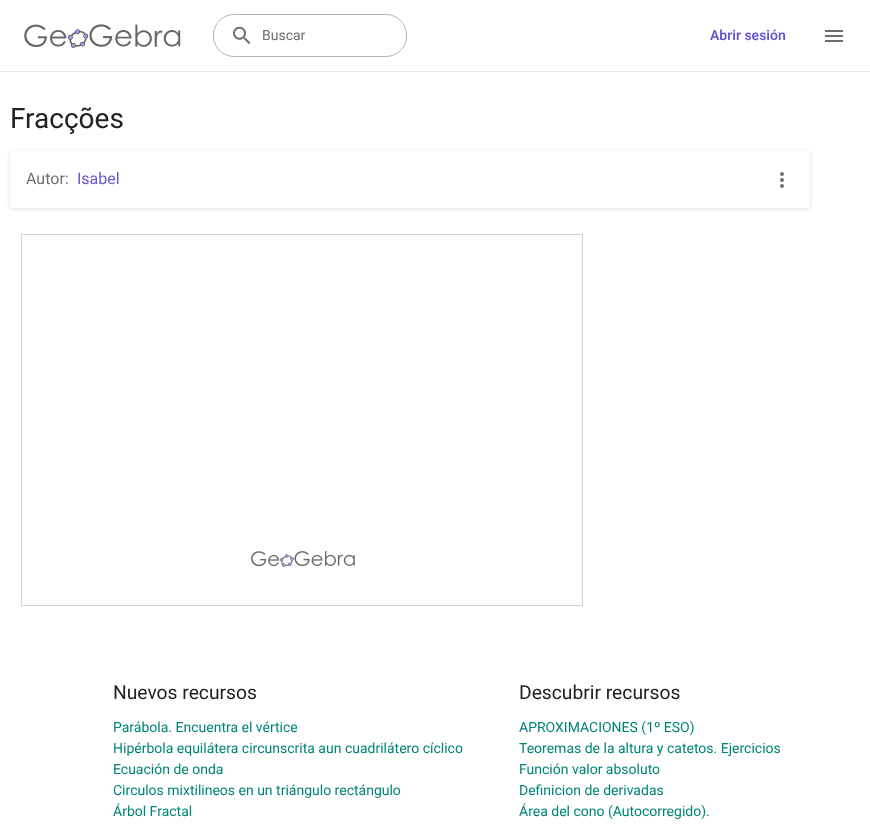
(async () => {
  const canvas = document.querySelector("canvas");
  canvas.width = 870;
  canvas.height = 832;
  const ctx = canvas.getContext("2d");
  ctx.miterLimit = 4;
  ctx.fontKerning = "normal";
  async function loadImage(src) {
    const img = new Image();
    img.src = src;
    await img.decode();
    return img;
  }

  ctx.fillStyle = "#ffffff";
  ctx.fillRect(0, 0, 870, 832);
  ctx.fillStyle = "#e6e6eb";
  ctx.fillRect(0, 71, 870, 1);
  ctx.drawImage(await loadImage("img/1.png"), 24, 24, 157, 24);
  ctx.beginPath();
  ctx.roundRect(213.5, 14.5, 193, 42, 20.5);
  ctx.strokeStyle = "#b4b3ba";
  ctx.stroke();
  ctx.drawImage(await loadImage("img/2.png"), 233, 26, 18, 19);
  ctx.drawImage(await loadImage("img/3.png"), 825, 30, 18, 12);
  ctx.fillStyle = "rgba(28, 28, 31, 0.14)";
  ctx.filter = "blur(2px)";
  ctx.beginPath();
  ctx.roundRect(10, 152, 800, 57, 4);
  ctx.fill();
  ctx.filter = "none";
  ctx.fillStyle = "#ffffff";
  ctx.beginPath();
  ctx.roundRect(10, 151, 800, 57, 4);
  ctx.fill();
  ctx.drawImage(await loadImage("img/4.png"), 780, 172, 4, 16);
  ctx.drawImage(await loadImage("img/5.png"), 251, 551, 104, 16);
  ctx.strokeStyle = "#d3d3d3";
  ctx.strokeRect(21.5, 234.5, 561, 371);
  ctx.font = "14px Roboto";
  ctx.fillStyle = "#6e6d73";
  ctx.fillText("Buscar", 262, 40);
  ctx.font = "600 14px Roboto";
  ctx.fillStyle = "#6557d2";
  ctx.fillText("Abrir sesión", 710, 40);
  ctx.font = "28px Roboto";
  ctx.fillStyle = "#212121";
  ctx.fillText("Fracções", 10, 128);
  ctx.font = "16px Roboto";
  ctx.fillStyle = "#6e6d73";
  ctx.fillText("Autor:", 26, 184);
  ctx.fillStyle = "#6557d2";
  ctx.fillText("Isabel", 77, 184);
  ctx.font = "19.25px Roboto";
  ctx.fillStyle = "#212121";
  ctx.fillText("Nuevos recursos", 113, 699);
  ctx.font = "14px Roboto";
  ctx.fillStyle = "#008475";
  for (const [text, x, y] of [
    ["Parábola. Encuentra el vértice", 113, 732],
    ["Hipérbola equilátera circunscrita aun cuadrilátero cíclico", 113, 753],
    ["Ecuación de onda", 113, 774],
    ["Circulos mixtilineos en un triángulo rectángulo", 113, 795],
    ["Árbol Fractal", 113, 816],
  ]) {
    ctx.fillText(text, x, y);
  }
  ctx.font = "19.25px Roboto";
  ctx.fillStyle = "#212121";
  ctx.fillText("Descubrir recursos", 519, 699);
  ctx.font = "14px Roboto";
  ctx.fillStyle = "#008475";
  for (const [text, x, y] of [
    ["APROXIMACIONES (1º ESO)", 519, 732],
    ["Teoremas de la altura y catetos. Ejercicios", 519, 753],
    ["Función valor absoluto", 519, 774],
    ["Definicion de derivadas", 519, 795],
    ["Área del cono (Autocorregido).", 519, 816],
  ]) {
    ctx.fillText(text, x, y);
  }
})();
